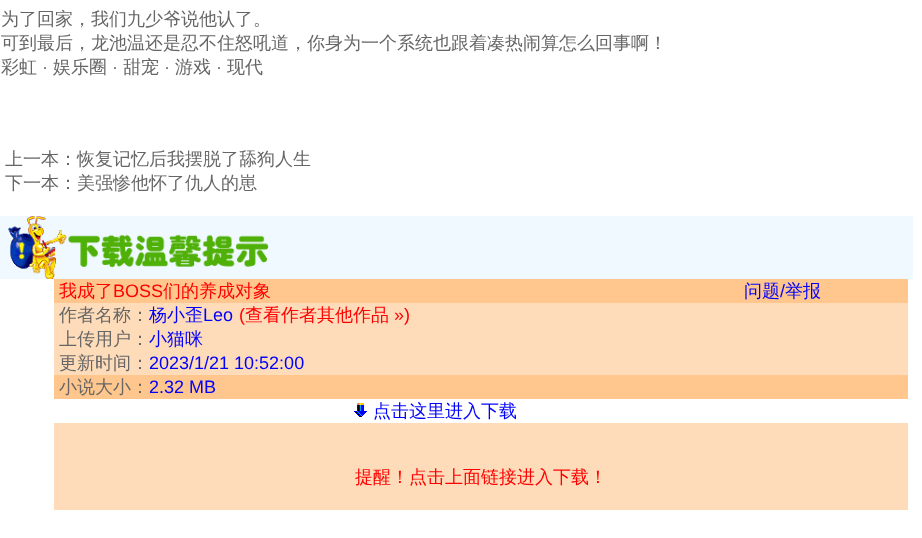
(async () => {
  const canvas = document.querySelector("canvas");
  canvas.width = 922;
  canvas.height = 538;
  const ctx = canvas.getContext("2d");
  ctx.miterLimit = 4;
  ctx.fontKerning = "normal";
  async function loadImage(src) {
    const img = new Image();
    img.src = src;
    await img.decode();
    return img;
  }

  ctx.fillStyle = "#ffffff";
  ctx.fillRect(0, 0, 922, 538);
  ctx.fillStyle = "#f0f9ff";
  ctx.fillRect(0, 216, 913, 63);
  ctx.drawImage(await loadImage("img/1.png"), 8, 216, 261, 63);
  for (const [x, y, w, h, color] of [
    [54, 279, 854, 24, "#ffc78e"],
    [54, 303, 854, 72, "#ffdcb9"],
    [54, 375, 854, 24, "#ffc78e"],
  ]) {
    ctx.fillStyle = color;
    ctx.fillRect(x, y, w, h);
  }
  ctx.drawImage(await loadImage("img/2.png"), 354, 403, 13, 14);
  ctx.fillStyle = "#ffdcb9";
  ctx.fillRect(54, 423, 854, 87);
  ctx.font = "500 18px WenQuanYi Zen Hei";
  ctx.fillStyle = "#666666";
  for (const [text, x, y] of [
    ["为了回家，我们九少爷说他认了。", 1, 25],
    ["可到最后，龙池温还是忍不住怒吼道，你身为一个系统也跟着凑热闹算怎么回事啊！", 1, 49],
    ["彩虹", 1, 73],
  ]) {
    ctx.fillText(text, x, y);
  }
  ctx.font = "18px Liberation Sans";
  ctx.fillText("·", 42, 73);
  ctx.font = "500 18px WenQuanYi Zen Hei";
  ctx.fillText("娱乐圈", 53, 73);
  ctx.font = "18px Liberation Sans";
  ctx.fillText("·", 112, 73);
  ctx.font = "500 18px WenQuanYi Zen Hei";
  ctx.fillText("甜宠", 123, 73);
  ctx.font = "18px Liberation Sans";
  ctx.fillText("·", 164, 73);
  ctx.font = "500 18px WenQuanYi Zen Hei";
  ctx.fillText("游戏", 175, 73);
  ctx.font = "18px Liberation Sans";
  ctx.fillText("·", 216, 73);
  ctx.font = "500 18px WenQuanYi Zen Hei";
  for (const [text, x, y] of [
    ["现代", 227, 73],
    ["上一本：恢复记忆后我摆脱了舔狗人生", 5, 165],
    ["下一本：美强惨他怀了仇人的崽", 5, 189],
  ]) {
    ctx.fillText(text, x, y);
  }
  ctx.fillStyle = "#ff0000";
  ctx.fillText("我成了", 59, 297);
  ctx.font = "18px Liberation Sans";
  ctx.fillText("BOSS", 113, 297);
  ctx.font = "500 18px WenQuanYi Zen Hei";
  ctx.fillText("们的养成对象", 163, 297);
  ctx.fillStyle = "#0000ff";
  ctx.fillText("问题", 744, 297);
  ctx.font = "18px Liberation Sans";
  ctx.fillText("/", 780, 297);
  ctx.font = "500 18px WenQuanYi Zen Hei";
  ctx.fillText("举报", 785, 297);
  ctx.fillStyle = "#666666";
  ctx.fillText("作者名称：", 59, 321);
  ctx.fillStyle = "#0000ff";
  ctx.fillText("杨小歪", 149, 321);
  ctx.font = "18px Liberation Sans";
  ctx.fillText("Leo", 203, 321);
  ctx.fillStyle = "#ff0000";
  ctx.fillText("(", 239, 321);
  ctx.font = "500 18px WenQuanYi Zen Hei";
  ctx.fillText("查看作者其他作品", 245, 321);
  ctx.font = "18px Liberation Sans";
  ctx.fillText("»)", 394, 321);
  ctx.font = "500 18px WenQuanYi Zen Hei";
  ctx.fillStyle = "#666666";
  ctx.fillText("上传用户：", 59, 345);
  ctx.fillStyle = "#0000ff";
  ctx.fillText("小猫咪", 149, 345);
  ctx.fillStyle = "#666666";
  ctx.fillText("更新时间：", 59, 369);
  ctx.font = "18px Liberation Sans";
  ctx.fillStyle = "#0000ff";
  ctx.fillText("2023/1/21 10:52:00", 149, 369);
  ctx.font = "500 18px WenQuanYi Zen Hei";
  ctx.fillStyle = "#666666";
  ctx.fillText("小说大小：", 59, 393);
  ctx.font = "18px Liberation Sans";
  ctx.fillStyle = "#0000ff";
  ctx.fillText("2.32 MB", 149, 393);
  ctx.font = "500 18px WenQuanYi Zen Hei";
  ctx.fillText("点击这里进入下载", 373, 417);
  ctx.fillStyle = "#ff0000";
  ctx.fillText("提醒！点击上面链接进入下载！", 355, 483);
})();
